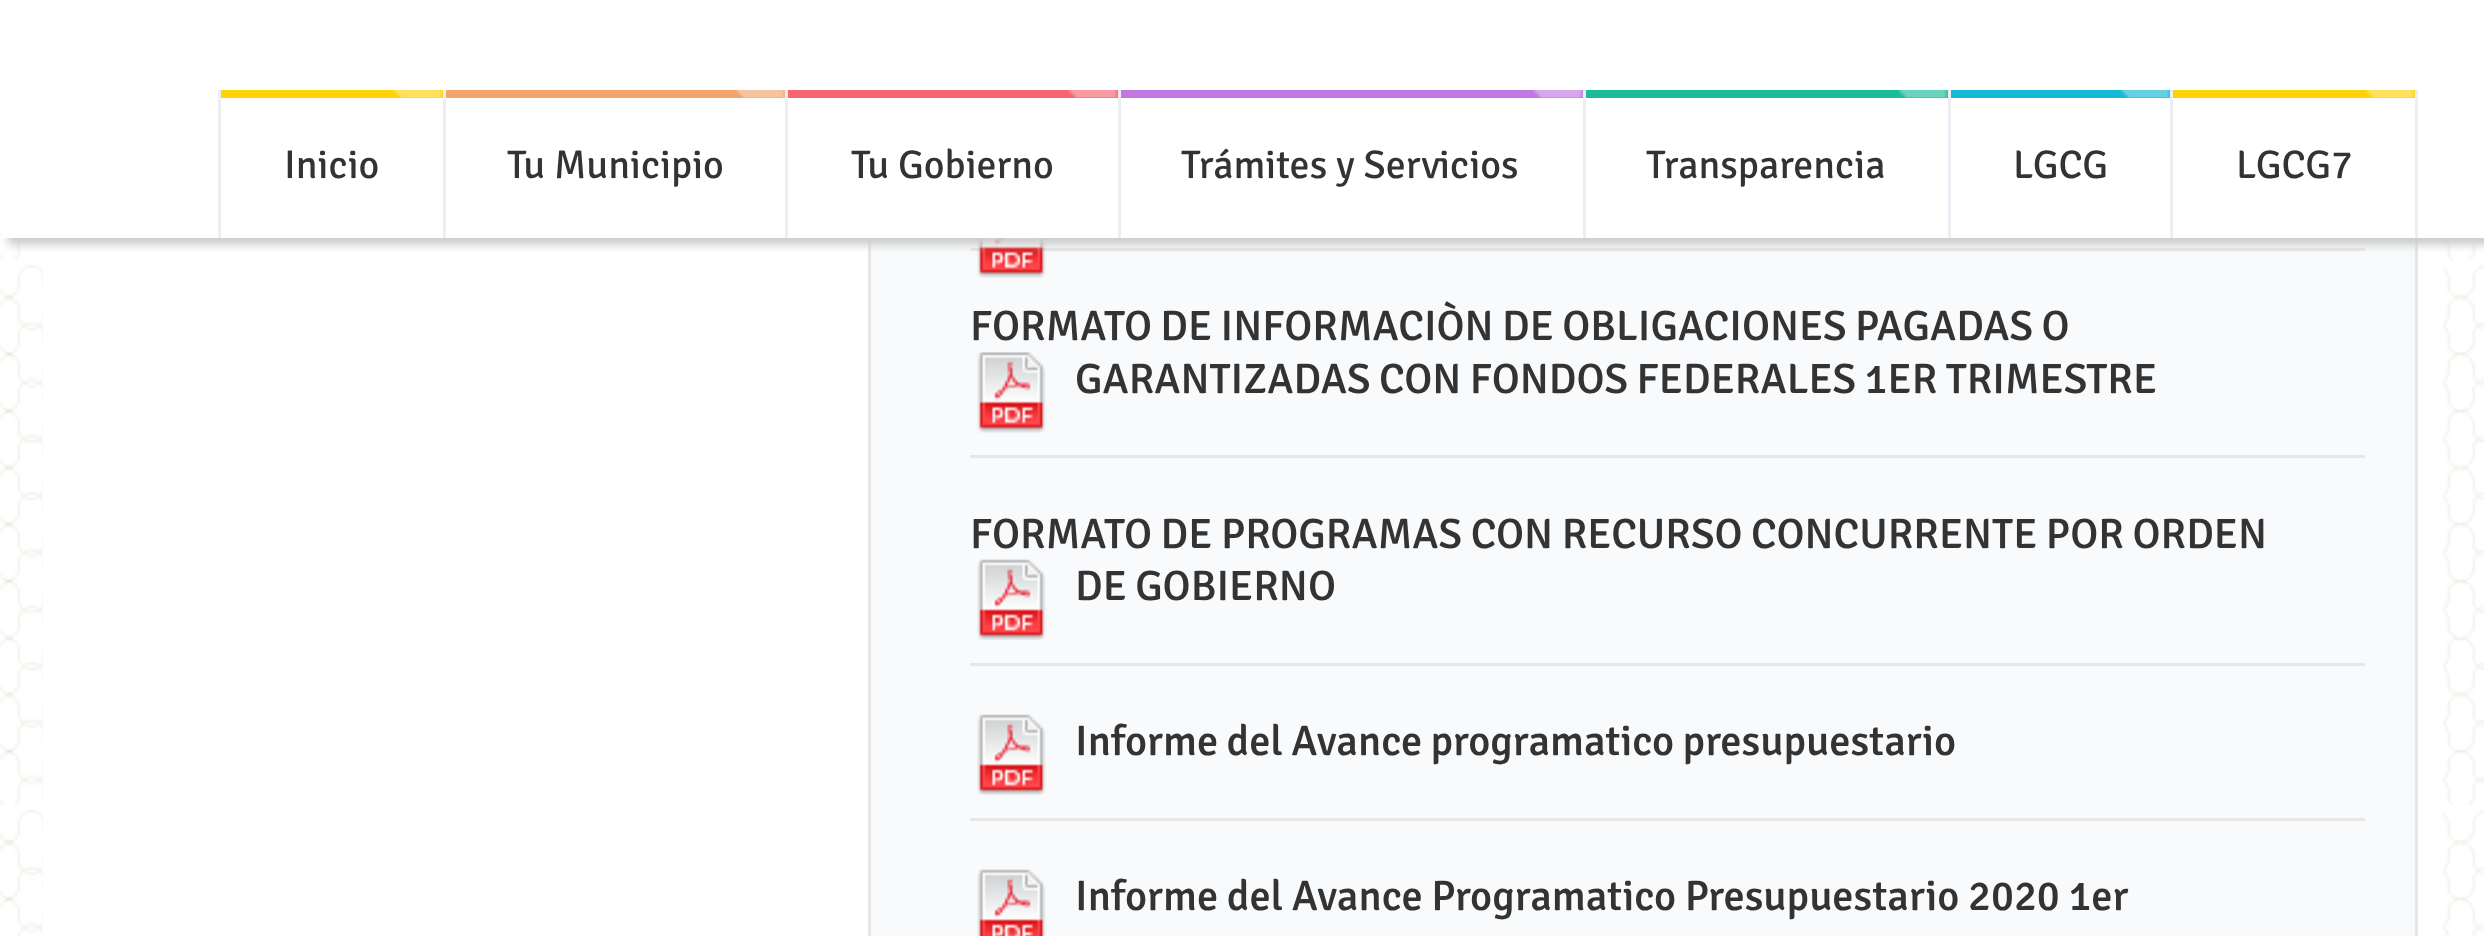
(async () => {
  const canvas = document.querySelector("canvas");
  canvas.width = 2484;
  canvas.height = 936;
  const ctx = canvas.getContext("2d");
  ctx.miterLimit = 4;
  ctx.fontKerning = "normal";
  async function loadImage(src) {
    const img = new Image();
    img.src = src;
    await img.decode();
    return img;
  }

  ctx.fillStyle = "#ffffff";
  ctx.fillRect(0, 0, 2484, 936);
  ctx.drawImage(await loadImage("img/1.png"), 0, 238, 2484, 698);
  ctx.fillRect(43, 238, 2400, 698);
  ctx.fillStyle = "#f9fafc";
  ctx.fillRect(871, 238, 1544, 698);
  ctx.strokeStyle = "#e5e5e5";
  ctx.lineWidth = 3;
  ctx.strokeRect(869.5, -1.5, 1547, 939);
  ctx.fillStyle = "#e7e7e7";
  ctx.fillRect(970, 248, 1395, 3);
  ctx.drawImage(await loadImage("img/9.png"), 977, 238, 69, 40);
  ctx.fillStyle = "#cccccc";
  ctx.filter = "blur(4px)";
  ctx.beginPath();
  ctx.rect(8, 8, 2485, 237);
  ctx.fill();
  ctx.filter = "none";
  ctx.fillStyle = "#ffffff";
  ctx.fillRect(1, 0, 2483, 238);
  ctx.fillStyle = "#ffd205";
  ctx.fillRect(218, 90, 225, 8);
  ctx.drawImage(await loadImage("img/2.png"), 392, 90, 51, 8);
  ctx.fillStyle = "#ebeef2";
  ctx.fillRect(218, 90, 3, 148);
  ctx.fillStyle = "#f3a46b";
  ctx.fillRect(443, 90, 342, 8);
  ctx.drawImage(await loadImage("img/3.png"), 735, 90, 50, 8);
  ctx.fillStyle = "#ebeef2";
  ctx.fillRect(443, 90, 3, 148);
  ctx.fillStyle = "#f76570";
  ctx.fillRect(785, 90, 333, 8);
  ctx.drawImage(await loadImage("img/4.png"), 1067, 90, 51, 8);
  ctx.fillStyle = "#ebeef2";
  ctx.fillRect(785, 90, 3, 148);
  ctx.fillStyle = "#c377e4";
  ctx.fillRect(1118, 90, 465, 8);
  ctx.drawImage(await loadImage("img/5.png"), 1532, 90, 51, 8);
  ctx.fillStyle = "#ebeef2";
  ctx.fillRect(1118, 90, 3, 148);
  ctx.fillStyle = "#1bbc9b";
  ctx.fillRect(1583, 90, 365, 8);
  ctx.drawImage(await loadImage("img/6.png"), 1897, 90, 51, 8);
  ctx.fillStyle = "#ebeef2";
  ctx.fillRect(1583, 90, 3, 148);
  ctx.fillStyle = "#14b9d5";
  ctx.fillRect(1948, 90, 222, 8);
  ctx.drawImage(await loadImage("img/7.png"), 2120, 90, 50, 8);
  for (const [x, y, w, h, color] of [
    [1948, 90, 3, 148, "#ebeef2"],
    [2170, 90, 245, 8, "#ffd205"],
    [2415, 90, 3, 148, "#ebeef2"],
  ]) {
    ctx.fillStyle = color;
    ctx.fillRect(x, y, w, h);
  }
  ctx.drawImage(await loadImage("img/8.png"), 2365, 90, 50, 8);
  ctx.fillRect(2170, 90, 3, 148);
  ctx.fillStyle = "#e7e7e7";
  ctx.fillRect(970, 455, 1395, 3);
  ctx.drawImage(await loadImage("img/10.png"), 977, 352, 69, 81);
  ctx.fillRect(970, 663, 1395, 3);
  ctx.drawImage(await loadImage("img/11.png"), 977, 559, 69, 81);
  ctx.fillRect(970, 818, 1395, 3);
  ctx.drawImage(await loadImage("img/11.png"), 977, 714, 69, 81);
  ctx.drawImage(await loadImage("img/12.png"), 977, 869, 69, 67);
  ctx.font = "40px Signika";
  ctx.fillStyle = "#333333";
  for (const [text, x, y] of [
    ["Inicio", 284, 178],
    ["Tu Municipio", 507, 178],
    ["Tu Gobierno", 851, 178],
    ["Trámites y Servicios", 1181, 178],
    ["Transparencia", 1646, 178],
    ["LGCG", 2013, 178],
    ["LGCG7", 2236, 178],
  ]) {
    ctx.fillText(text, x, y);
  }
  ctx.wordSpacing = "-1px";
  ctx.font = "500 42.5px Signika";
  ctx.fillText("FORMATO DE INFORMACIÒN DE OBLIGACIONES PAGADAS O", 970, 340);
  ctx.fillText("GARANTIZADAS CON FONDOS FEDERALES 1ER TRIMESTRE", 1075, 393);
  ctx.wordSpacing = "-0.75px";
  ctx.fillText("FORMATO DE PROGRAMAS CON RECURSO CONCURRENTE POR ORDEN", 970, 548);
  ctx.wordSpacing = "-1px";
  ctx.fillText("DE GOBIERNO", 1075, 600);
  ctx.fillText("Informe del Avance programatico presupuestario", 1075, 755);
  ctx.wordSpacing = "-0.75px";
  ctx.fillText("Informe del Avance Programatico Presupuestario 2020 1er", 1075, 910);
})();
